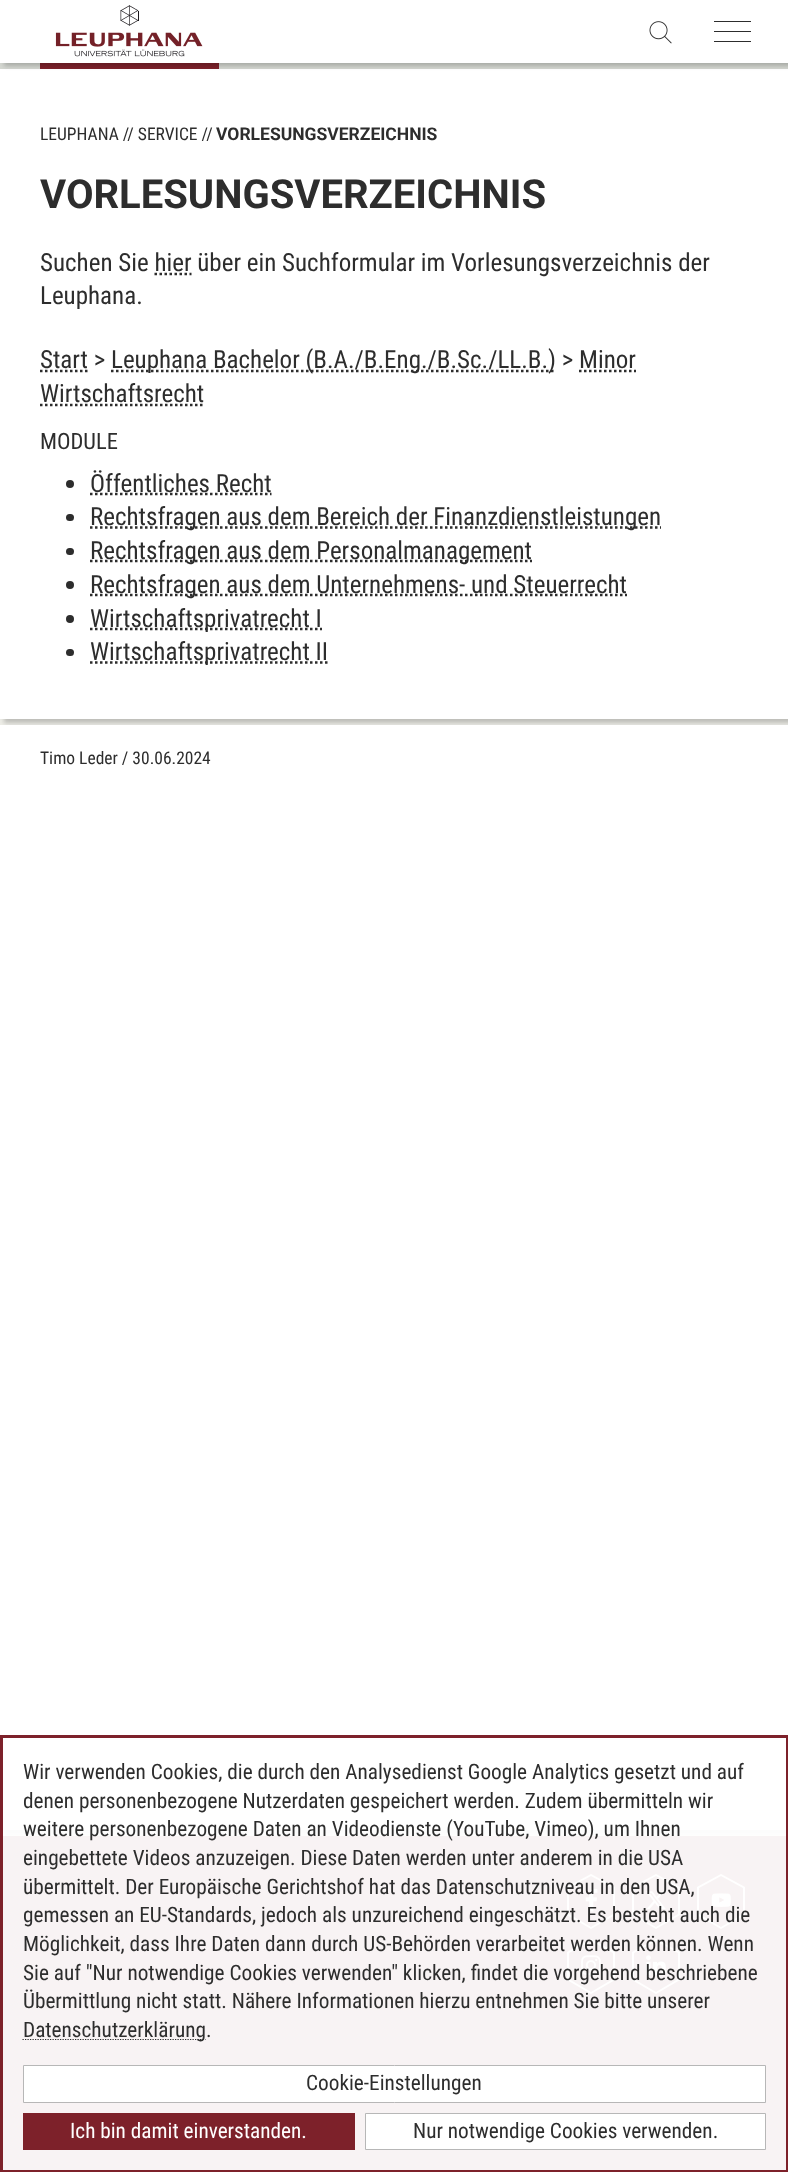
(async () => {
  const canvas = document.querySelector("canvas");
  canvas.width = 788;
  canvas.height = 2172;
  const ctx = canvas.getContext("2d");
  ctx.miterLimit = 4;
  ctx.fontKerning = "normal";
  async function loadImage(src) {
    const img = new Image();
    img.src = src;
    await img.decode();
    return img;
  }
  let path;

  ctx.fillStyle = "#d4d7d1";
  ctx.fillRect(0, 0, 788, 2172);
  ctx.fillStyle = "#ffffff";
  ctx.fillRect(0, 0, 788, 63);
  ctx.drawImage(await loadImage("img/1.png"), 55, 5, 148, 52);
  ctx.fillStyle = "#edede7";
  ctx.fillRect(0, 719, 788, 6);
  ctx.fillStyle = "rgba(0, 0, 0, 0.2)";
  ctx.filter = "blur(2px)";
  ctx.beginPath();
  ctx.rect(4, 73, 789, 650);
  ctx.fill();
  ctx.filter = "none";
  ctx.fillStyle = "#7d212a";
  ctx.fillRect(40, 63, 179, 6);
  ctx.drawImage(await loadImage("img/2.png"), 649, 21, 23, 23);
  for (const [x, y, w, h, color] of [
    [714, 31, 37, 1, "#2d2d2d"],
    [714, 21, 37, 1, "#2d2d2d"],
    [714, 41, 37, 1, "#2d2d2d"],
    [0, 69, 788, 650, "#ffffff"],
  ]) {
    ctx.fillStyle = color;
    ctx.fillRect(x, y, w, h);
  }
  ctx.save();
  path = new Path2D("M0 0H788V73H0ZM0-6H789V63H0Z");
  ctx.clip(path, "evenodd");
  ctx.fillStyle = "rgba(0, 0, 0, 0.2)";
  ctx.filter = "blur(2px)";
  ctx.beginPath();
  ctx.rect(4, -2, 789, 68);
  ctx.fill();
  ctx.filter = "none";
  ctx.restore();
  path = new Path2D("M154.5 274H191.5");
  ctx.strokeStyle = "#2d2d2d";
  ctx.lineWidth = 2.5;
  ctx.setLineDash([2.5, 2.5]);
  ctx.stroke(path);
  path = new Path2D("M40 371H88");
  ctx.stroke(path);
  path = new Path2D("M111 371H556");
  ctx.stroke(path);
  path = new Path2D("M579 371H636");
  ctx.stroke(path);
  path = new Path2D("M40 405H204");
  ctx.stroke(path);
  ctx.fillStyle = "#2d2d2d";
  ctx.beginPath();
  ctx.arc(70, 484, 4, 0, Math.PI * 2);
  ctx.fill();
  path = new Path2D("M90 494H271.5");
  ctx.stroke(path);
  ctx.beginPath();
  ctx.roundRect(66, 514, 8, 7, 3.5);
  ctx.fill();
  path = new Path2D("M90 527.5H661");
  ctx.stroke(path);
  ctx.beginPath();
  ctx.roundRect(66, 548, 8, 7, 3.5);
  ctx.fill();
  path = new Path2D("M90 561H532");
  ctx.stroke(path);
  ctx.beginPath();
  ctx.arc(70, 585, 4, 0, Math.PI * 2);
  ctx.fill();
  path = new Path2D("M90 595H627");
  ctx.stroke(path);
  ctx.beginPath();
  ctx.arc(70, 619, 4, 0, Math.PI * 2);
  ctx.fill();
  path = new Path2D("M90 629H322");
  ctx.stroke(path);
  ctx.beginPath();
  ctx.roundRect(66, 649, 8, 7, 3.5);
  ctx.fill();
  path = new Path2D("M90 662.5H328");
  ctx.stroke(path);
  ctx.fillStyle = "#edede7";
  ctx.fillRect(0, 1830, 788, 6);
  ctx.fillStyle = "#7d212a";
  ctx.fillRect(3, 1836, 783, 334);
  ctx.fillStyle = "rgba(0, 0, 0, 0.2)";
  ctx.filter = "blur(2px)";
  ctx.beginPath();
  ctx.rect(4, 729, 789, 1105);
  ctx.fill();
  ctx.filter = "none";
  ctx.fillStyle = "#ffffff";
  ctx.fillRect(0, 725, 788, 1105);
  path = new Path2D("M615 1887V1915L591 1929L567 1915V1887L591 1874ZM569 1888V1914L591 1927L613 1914V1888L591 1876Z");
  ctx.fill(path, "evenodd");
  ctx.drawImage(await loadImage("img/3.png"), 585, 1888, 13, 24);
  path = new Path2D("M680 1887V1915L656 1929L632 1915V1887L656 1874ZM634 1888V1914L656 1927L678 1914V1888L656 1876Z");
  ctx.fill(path, "evenodd");
  ctx.drawImage(await loadImage("img/4.png"), 646, 1891, 20, 19);
  path = new Path2D("M745 1887V1915L721 1929L697 1915V1887L721 1874ZM699 1888V1914L721 1927L743 1914V1888L721 1876Z");
  ctx.fill(path, "evenodd");
  ctx.drawImage(await loadImage("img/5.png"), 711, 1893, 20, 14);
  path = new Path2D("M615 1952V1980L591 1994L567 1980V1952L591 1939ZM569 1953V1979L591 1992L613 1979V1953L591 1941Z");
  ctx.fill(path, "evenodd");
  ctx.drawImage(await loadImage("img/6.png"), 581, 1955, 20, 20);
  path = new Path2D("M680 1952V1980L656 1994L632 1980V1952L656 1939ZM634 1953V1979L656 1992L678 1979V1953L656 1941Z");
  ctx.fill(path, "evenodd");
  ctx.drawImage(await loadImage("img/7.png"), 646, 1955, 20, 20);
  ctx.fillStyle = "rgba(255, 255, 255, 0.95)";
  ctx.fillRect(3, 1830, 783, 340);
  ctx.strokeStyle = "#7d212a";
  ctx.lineWidth = 3;
  ctx.setLineDash([]);
  ctx.strokeRect(1.5, 1736.5, 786, 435);
  path = new Path2D("M22.5 2039.5H205.5");
  ctx.strokeStyle = "#2d2d2d";
  ctx.lineWidth = 1.2;
  ctx.setLineDash([1.25, 1.25]);
  ctx.stroke(path);
  ctx.fillStyle = "#ffffff";
  ctx.beginPath();
  ctx.rect(23.5, 2065.5, 742, 37);
  ctx.fill();
  ctx.strokeStyle = "#b7b7b7";
  ctx.lineWidth = 1;
  ctx.setLineDash([]);
  ctx.stroke();
  ctx.fillStyle = "#7d212a";
  ctx.fillRect(23, 2113, 332, 37);
  ctx.fillStyle = "#ffffff";
  ctx.beginPath();
  ctx.rect(365.5, 2113.5, 400, 36);
  ctx.fill();
  ctx.stroke();
  ctx.font = "17.5px Roboto Condensed";
  ctx.fillStyle = "#2d2d2d";
  ctx.fillText("LEUPHANA // SERVICE //", 40, 140);
  ctx.font = "bold 17.5px Roboto";
  ctx.fillText("VORLESUNGSVERZEICHNIS", 216, 140);
  ctx.font = "bold 40px Roboto";
  ctx.fillText("VORLESUNGSVERZEICHNIS", 40, 208);
  ctx.font = "25px Roboto Condensed";
  for (const [text, x, y] of [
    ["Suchen Sie hier über ein Suchformular im Vorlesungsverzeichnis der", 40, 271],
    ["Leuphana.", 40, 304],
    ["Start >", 40, 368],
    ["Leuphana Bachelor (B.A./B.Eng./B.Sc./LL.B.) > Minor", 111, 368],
    ["Wirtschaftsrecht", 40, 402],
  ]) {
    ctx.fillText(text, x, y);
  }
  ctx.font = "22.5px Roboto Condensed";
  ctx.fillText("MODULE", 40, 449);
  ctx.font = "25px Roboto Condensed";
  for (const [text, x, y] of [
    ["Öffentliches Recht", 90, 492],
    ["Rechtsfragen aus dem Bereich der Finanzdienstleistungen", 90, 525],
    ["Rechtsfragen aus dem Personalmanagement", 90, 559],
    ["Rechtsfragen aus dem Unternehmens- und Steuerrecht", 90, 593],
    ["Wirtschaftsprivatrecht I", 90, 627],
    ["Wirtschaftsprivatrecht II", 90, 660],
  ]) {
    ctx.fillText(text, x, y);
  }
  ctx.font = "17.5px Roboto Condensed";
  ctx.fillText("Timo Leder / 30.06.2024", 40, 764);
  ctx.font = "21.25px Roboto Condensed";
  for (const [text, x, y] of [
    ["Wir verwenden Cookies, die durch den Analysedienst Google Analytics gesetzt und auf", 23, 1779],
    ["denen personenbezogene Nutzerdaten gespeichert werden. Zudem übermitteln wir", 23, 1808],
    ["weitere personenbezogene Daten an Videodienste (YouTube, Vimeo), um Ihnen", 23, 1836],
    ["eingebettete Videos anzuzeigen. Diese Daten werden unter anderem in die USA", 23, 1865],
    ["übermittelt. Der Europäische Gerichtshof hat das Datenschutzniveau in den USA,", 23, 1894],
    ["gemessen an EU-Standards, jedoch als unzureichend eingeschätzt. Es besteht auch die", 23, 1922],
    ["Möglichkeit, dass Ihre Daten dann durch US-Behörden verarbeitet werden können. Wenn", 23, 1951],
    ["Sie auf \"Nur notwendige Cookies verwenden\" klicken, findet die vorgehend beschriebene", 23, 1980],
    ["Übermittlung nicht statt. Nähere Informationen hierzu entnehmen Sie bitte unserer", 23, 2008],
    ["Datenschutzerklärung.", 23, 2037],
    ["Cookie-Einstellungen", 306, 2090],
  ]) {
    ctx.fillText(text, x, y);
  }
  ctx.fillStyle = "#ffffff";
  ctx.fillText("Ich bin damit einverstanden.", 70, 2138);
  ctx.fillStyle = "#2d2d2d";
  ctx.fillText("Nur notwendige Cookies verwenden.", 413, 2138);
})();
